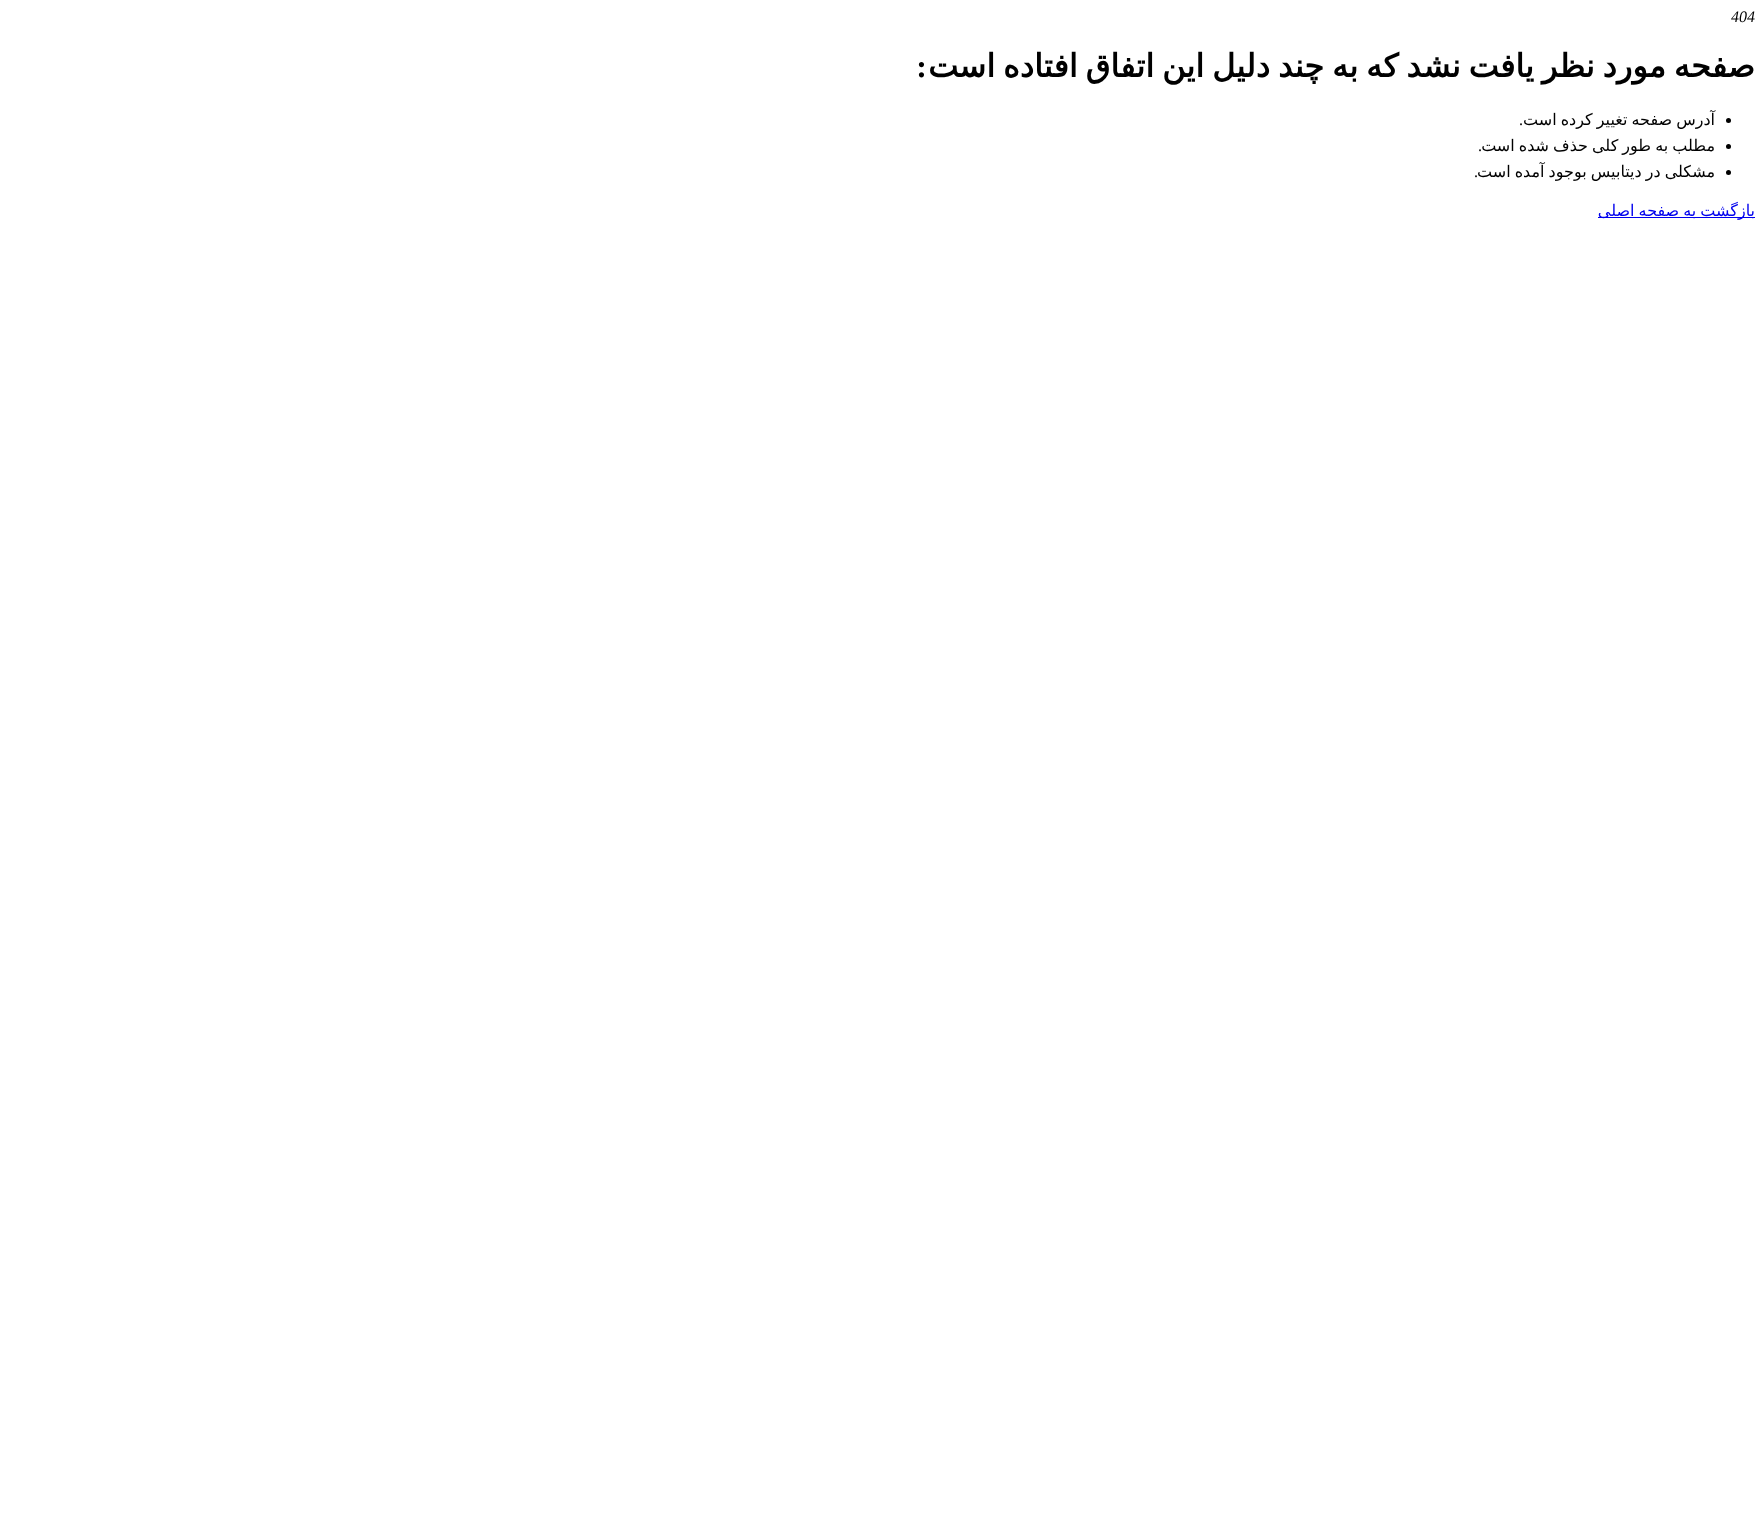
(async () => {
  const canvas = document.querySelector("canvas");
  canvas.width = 1763;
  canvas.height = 1521;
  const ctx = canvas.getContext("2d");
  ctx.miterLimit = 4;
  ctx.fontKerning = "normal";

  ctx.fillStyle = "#ffffff";
  ctx.fillRect(0, 0, 1763, 1521);
  ctx.fillStyle = "#000000";
  ctx.beginPath();
  ctx.arc(1728.5, 120.5, 2.5, 0, Math.PI * 2);
  ctx.fill();
  ctx.beginPath();
  ctx.arc(1728.5, 146.5, 2.5, 0, Math.PI * 2);
  ctx.fill();
  ctx.beginPath();
  ctx.arc(1728.5, 172.5, 2.5, 0, Math.PI * 2);
  ctx.fill();
  ctx.fillStyle = "#0000ee";
  ctx.fillRect(1598, 217, 157, 1);
  ctx.font = "italic 16px Liberation Serif";
  ctx.fillStyle = "#000000";
  ctx.fillText("404", 1731, 22);
  ctx.wordSpacing = "-2.25px";
  ctx.direction = "rtl";
  ctx.font = "bold 32px DejaVu Sans";
  ctx.fillText("صفحه مورد نظر یافت نشد که به چند دلیل این اتفاق افتاده است", 1755, 77);
  ctx.wordSpacing = "0px";
  ctx.font = "bold 32px Liberation Serif";
  ctx.fillText(":", 927, 77);
  ctx.wordSpacing = "-1px";
  ctx.font = "16px DejaVu Sans";
  ctx.fillText("آدرس صفحه تغییر کرده است", 1715, 125);
  ctx.wordSpacing = "0px";
  ctx.font = "16px Liberation Serif";
  ctx.fillText(".", 1523, 125);
  ctx.wordSpacing = "-1px";
  ctx.font = "16px DejaVu Sans";
  ctx.fillText("مطلب به طور کلی حذف شده است", 1715, 151);
  ctx.wordSpacing = "0px";
  ctx.font = "16px Liberation Serif";
  ctx.fillText(".", 1482, 151);
  ctx.wordSpacing = "-1px";
  ctx.font = "16px DejaVu Sans";
  ctx.fillText("مشکلی در دیتابیس بوجود آمده است", 1715, 177);
  ctx.wordSpacing = "0px";
  ctx.font = "16px Liberation Serif";
  ctx.fillText(".", 1478, 177);
  ctx.wordSpacing = "-1px";
  ctx.font = "16px DejaVu Sans";
  ctx.fillStyle = "#0000ee";
  ctx.fillText("بازگشت به صفحه اصلی", 1755, 216);
})();
